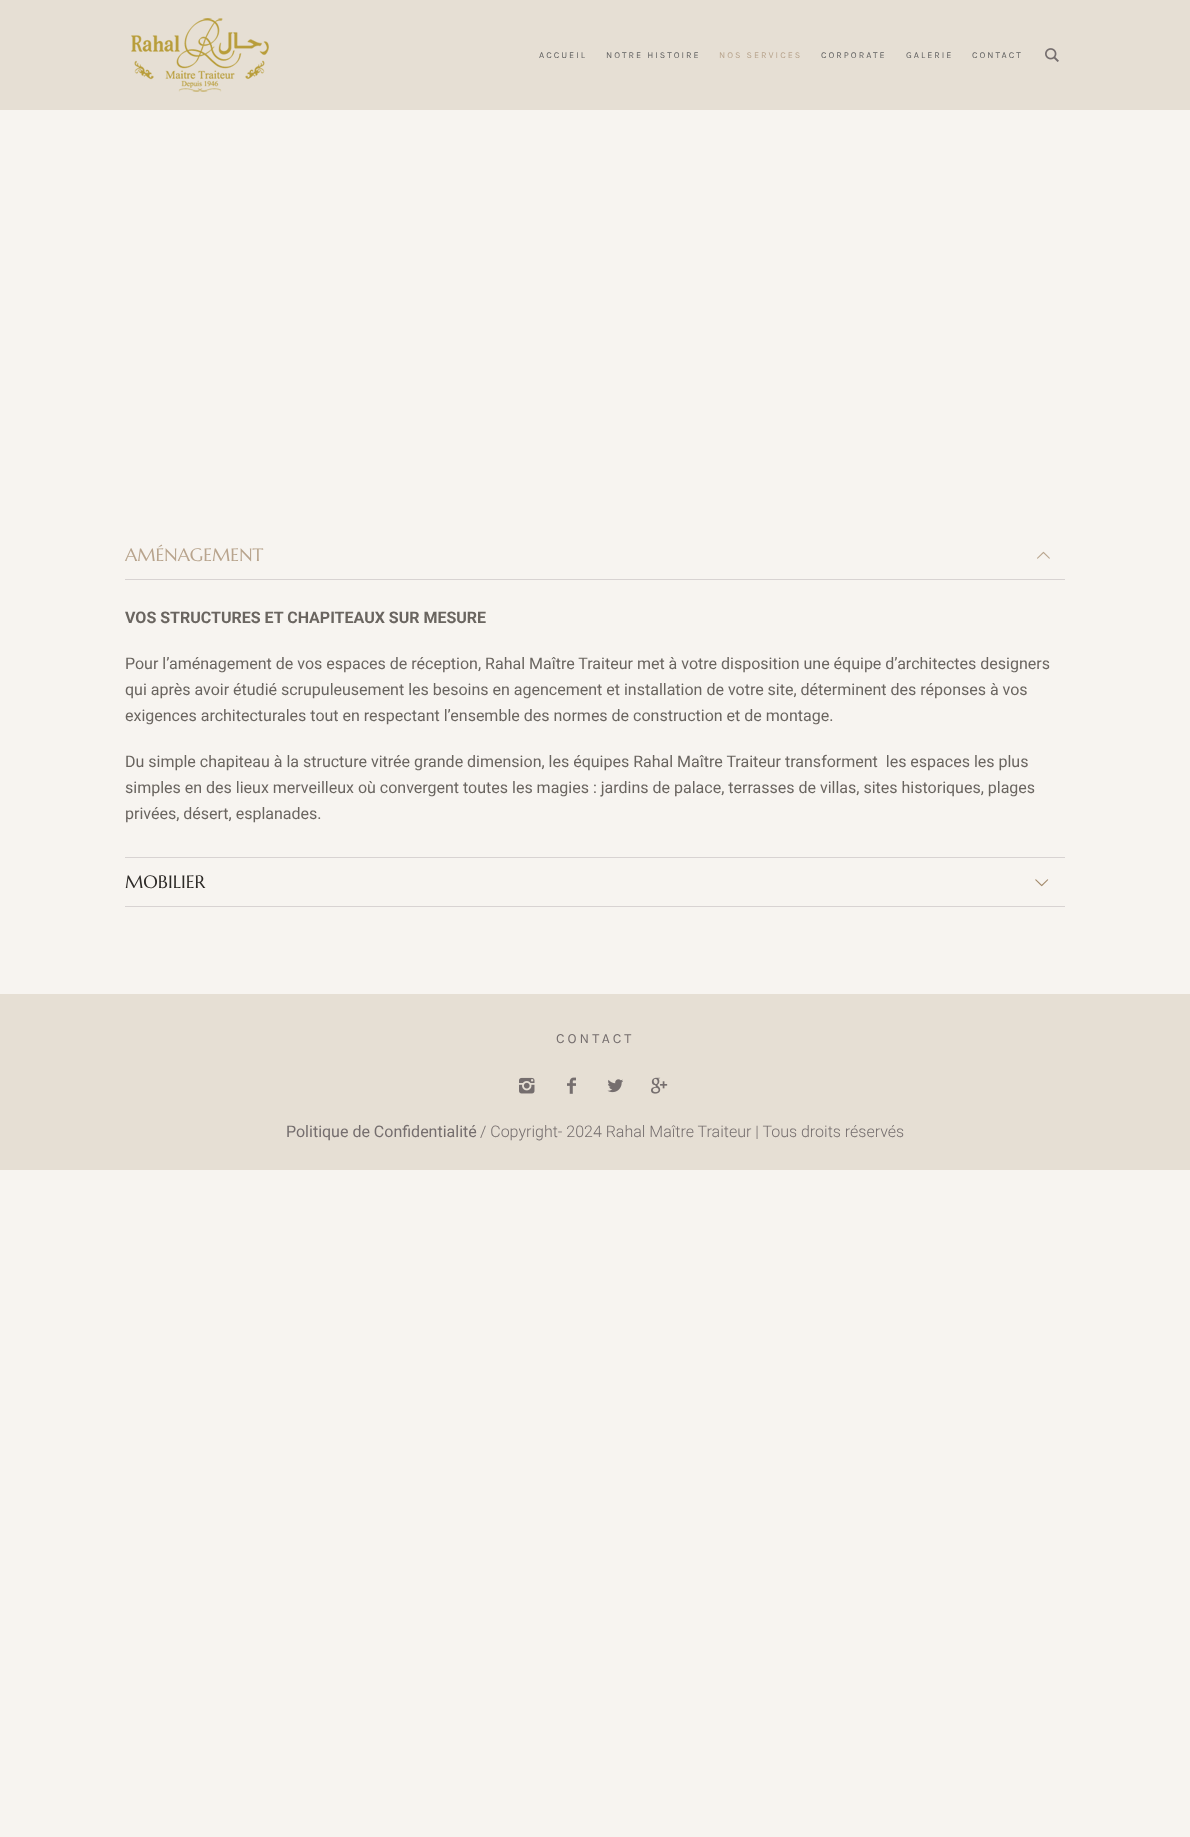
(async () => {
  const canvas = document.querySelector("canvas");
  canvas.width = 1190;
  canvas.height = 1837;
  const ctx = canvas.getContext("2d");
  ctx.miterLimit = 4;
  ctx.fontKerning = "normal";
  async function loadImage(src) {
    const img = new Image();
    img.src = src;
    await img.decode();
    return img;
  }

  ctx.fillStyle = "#f7f4f0";
  ctx.fillRect(0, 0, 1190, 1837);
  ctx.fillStyle = "#e6dfd4";
  ctx.fillRect(0, 0, 1190, 110);
  ctx.drawImage(await loadImage("img/1.png"), 131, 18, 138, 74);
  ctx.drawImage(await loadImage("img/2.png"), 1045, 48, 14, 14);
  ctx.fillStyle = "#d8d3d2";
  ctx.fillRect(125, 579, 940, 1);
  ctx.drawImage(await loadImage("img/3.png"), 1037, 551, 13, 8);
  ctx.fillRect(125, 857, 940, 1);
  ctx.fillRect(125, 906, 940, 1);
  ctx.drawImage(await loadImage("img/4.png"), 1035, 879, 14, 8);
  ctx.fillStyle = "#e6dfd4";
  ctx.fillRect(0, 994, 1190, 176);
  ctx.drawImage(await loadImage("img/5.png"), 519, 1077, 16, 17);
  ctx.drawImage(await loadImage("img/6.png"), 567, 1077, 9, 17);
  ctx.drawImage(await loadImage("img/7.png"), 607, 1079, 16, 14);
  ctx.drawImage(await loadImage("img/8.png"), 651, 1077, 17, 17);
  ctx.letterSpacing = "2px";
  ctx.font = "9px Karla";
  ctx.fillStyle = "#616161";
  ctx.fillText("ACCUEIL", 539, 58);
  ctx.fillText("NOTRE HISTOIRE", 606, 58);
  ctx.fillStyle = "#b8a48d";
  ctx.fillText("NOS SERVICES", 719, 58);
  ctx.fillStyle = "#616161";
  for (const [text, x, y] of [
    ["CORPORATE", 821, 58],
    ["GALERIE", 906, 58],
    ["CONTACT", 972, 58],
  ]) {
    ctx.fillText(text, x, y);
  }
  ctx.letterSpacing = "0px";
  ctx.font = "18px Marcellus";
  ctx.fillStyle = "#b8a48d";
  ctx.fillText("AMÉNAGEMENT", 125, 561);
  ctx.font = "bold 16px Roboto";
  ctx.fillStyle = "#6a6560";
  ctx.fillText("VOS STRUCTURES ET CHAPITEAUX SUR MESURE", 125, 623);
  ctx.font = "16px Roboto";
  for (const [text, x, y] of [
    ["Pour l’aménagement de vos espaces de réception, Rahal Maître Traiteur met à votre disposition une équipe d’architectes designers", 125, 669],
    ["qui après avoir étudié scrupuleusement les besoins en agencement et installation de votre site, déterminent des réponses à vos", 125, 695],
    ["exigences architecturales tout en respectant l’ensemble des normes de construction et de montage.", 125, 721],
    ["Du simple chapiteau à la structure vitrée grande dimension, les équipes Rahal Maître Traiteur transforment  les espaces les plus", 125, 767],
    ["simples en des lieux merveilleux où convergent toutes les magies : jardins de palace, terrasses de villas, sites historiques, plages", 125, 793],
    ["privées, désert, esplanades.", 125, 819],
  ]) {
    ctx.fillText(text, x, y);
  }
  ctx.font = "18px Marcellus";
  ctx.fillStyle = "#2d2a27";
  ctx.fillText("MOBILIER", 125, 888);
  ctx.letterSpacing = "3px";
  ctx.font = "14px Karla";
  ctx.fillStyle = "#756e6e";
  ctx.fillText("CONTACT", 556, 1043);
  ctx.letterSpacing = "0px";
  ctx.font = "16px Roboto";
  ctx.fillText("Politique de Confidentialité", 286, 1137);
  ctx.font = "300 16px Roboto";
  ctx.fillText("/ Copyright- 2024 Rahal Maître Traiteur | Tous droits réservés", 480, 1137);
})();
